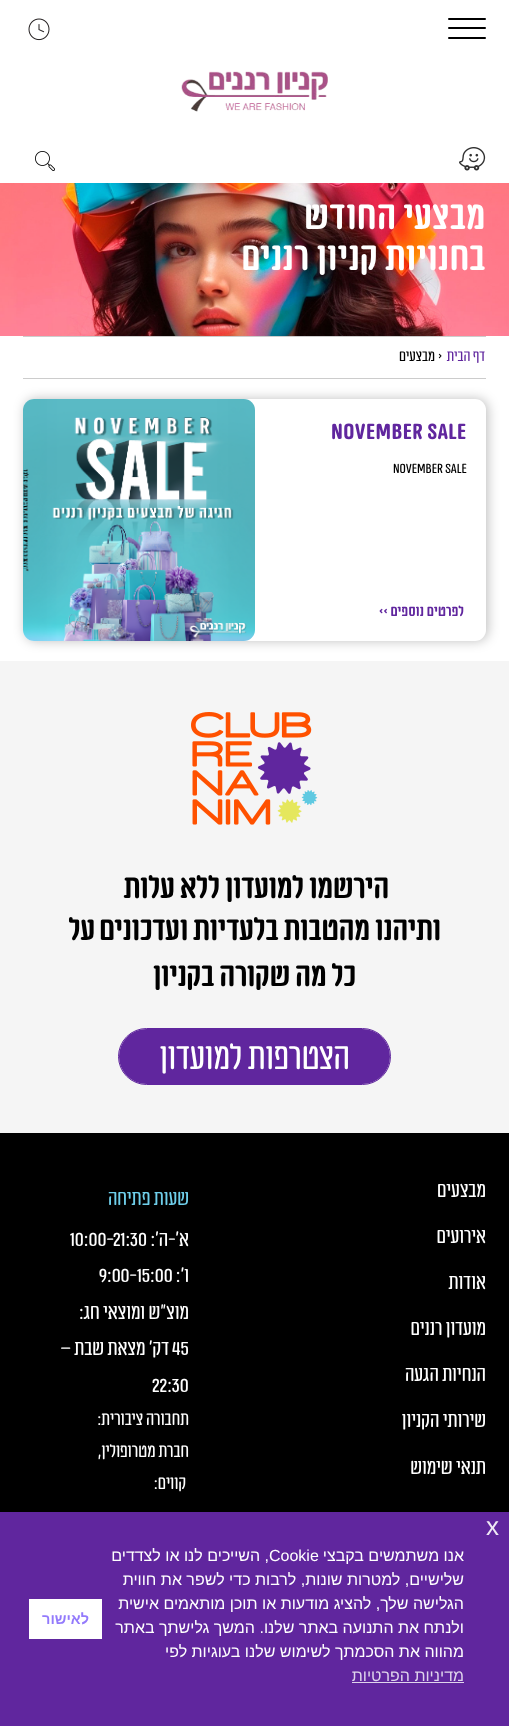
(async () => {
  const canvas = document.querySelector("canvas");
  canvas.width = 509;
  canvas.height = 1726;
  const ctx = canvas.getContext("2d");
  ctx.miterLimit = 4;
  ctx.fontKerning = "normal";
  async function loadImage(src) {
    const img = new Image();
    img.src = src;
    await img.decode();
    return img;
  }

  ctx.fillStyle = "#ffffff";
  ctx.fillRect(0, 0, 509, 1726);
  ctx.fillStyle = "#000000";
  ctx.beginPath();
  ctx.roundRect(448, 18, 38, 2, 1);
  ctx.fill();
  ctx.beginPath();
  ctx.roundRect(448, 27, 38, 2, 1);
  ctx.fill();
  ctx.beginPath();
  ctx.roundRect(448, 37, 38, 2, 1);
  ctx.fill();
  ctx.drawImage(await loadImage("img/1.png"), 28, 18, 22, 23);
  ctx.drawImage(await loadImage("img/2.png"), 181, 71, 147, 41);
  ctx.drawImage(await loadImage("img/3.png"), 459, 147, 27, 24);
  ctx.drawImage(await loadImage("img/4.png"), 35, 151, 20, 20);
  ctx.drawImage(await loadImage("img/5.png"), 0, 183, 509, 153);
  ctx.fillStyle = "#cccccc";
  ctx.fillRect(23, 336, 463, 1);
  ctx.fillRect(23, 378, 463, 1);
  ctx.fillStyle = "rgba(0, 0, 0, 0.25)";
  ctx.filter = "blur(6px)";
  ctx.beginPath();
  ctx.roundRect(25, 399, 463, 242, 11);
  ctx.fill();
  ctx.filter = "none";
  ctx.fillStyle = "#ffffff";
  ctx.beginPath();
  ctx.roundRect(23, 399, 463, 242, 11);
  ctx.fill();
  ctx.drawImage(await loadImage("img/6.png"), 23, 399, 232, 242);
  ctx.fillStyle = "#f5f5f5";
  ctx.fillRect(0, 661, 509, 472);
  ctx.drawImage(await loadImage("img/7.png"), 191, 712, 127, 113);
  ctx.beginPath();
  ctx.roundRect(118.5, 1028.5, 272, 56, 28);
  ctx.strokeStyle = "#60269e";
  ctx.stroke();
  ctx.fillStyle = "#60269e";
  ctx.beginPath();
  ctx.roundRect(119, 1029, 271, 55, 27.5);
  ctx.fill();
  for (const [x, y, w, h, color] of [
    [0, 1133, 509, 379, "#000000"],
    [0, 1512, 509, 214, "#60269e"],
    [352, 1682, 112, 1, "#dfd4ec"],
    [29, 1599, 73, 40, "#ffffff"],
  ]) {
    ctx.fillStyle = color;
    ctx.fillRect(x, y, w, h);
  }
  ctx.letterSpacing = "0.8px";
  ctx.direction = "rtl";
  ctx.font = "bold 40.75px 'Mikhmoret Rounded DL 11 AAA'";
  ctx.fillText("מבצעי החודש", 486, 229);
  ctx.fillText("בחנויות קניון רננים", 486, 270);
  ctx.letterSpacing = "0px";
  ctx.font = "16px 'Mikhmoret Rounded DL 11 AAA'";
  ctx.fillStyle = "#60269e";
  ctx.fillText("דף הבית", 485, 361);
  ctx.direction = "ltr";
  ctx.fillStyle = "#000000";
  ctx.fillText(">", 438, 361);
  ctx.direction = "rtl";
  ctx.fillText("מבצעים", 435, 361);
  ctx.letterSpacing = "0.5px";
  ctx.direction = "ltr";
  ctx.font = "bold 25.5px 'Mikhmoret Rounded DL 11 AAA'";
  ctx.fillStyle = "#60269e";
  ctx.fillText("NOVEMBER SALE", 331, 439);
  ctx.letterSpacing = "0px";
  ctx.font = "15.25px 'Mikhmoret Rounded DL 11 AAA'";
  ctx.fillStyle = "#000000";
  ctx.fillText("NOVEMBER SALE", 393, 473);
  ctx.letterSpacing = "0.25px";
  ctx.direction = "rtl";
  ctx.font = "bold 15.5px 'Mikhmoret Rounded DL 11 AAA'";
  ctx.fillStyle = "#60269e";
  ctx.fillText("לפרטים נוספים >>", 464, 616);
  ctx.letterSpacing = "0px";
  ctx.font = "bold 34px 'Mikhmoret Rounded DL 11 AAA'";
  ctx.fillStyle = "#000000";
  for (const [text, x, y] of [
    ["הירשמו למועדון ללא עלות", 389, 898],
    ["ותיהנו מהטבות בלעדיות ועדכונים", 441, 940],
    ["על", 95, 940],
    ["כל מה שקורה בקניון", 356, 986],
  ]) {
    ctx.fillText(text, x, y);
  }
  ctx.font = "38px 'Mikhmoret Rounded DL 11 AAA'";
  ctx.fillStyle = "#ffffff";
  ctx.fillText("הצטרפות למועדון", 350, 1069);
  ctx.font = "21.75px 'Mikhmoret Rounded DL 11 AAA'";
  for (const [text, x, y] of [
    ["מבצעים", 486, 1197],
    ["אירועים", 486, 1243],
    ["אודות", 486, 1289],
    ["מועדון רננים", 486, 1335],
    ["הנחיות הגעה", 486, 1381],
    ["שירותי הקניון", 486, 1427],
    ["תנאי שימוש", 486, 1474],
  ]) {
    ctx.fillText(text, x, y);
  }
  ctx.fillStyle = "#6fcfeb";
  ctx.fillText("שעות פתיחה", 189, 1205);
  ctx.fillStyle = "#ffffff";
  ctx.fillText("א׳-ה׳:", 189, 1246);
  ctx.direction = "ltr";
  ctx.fillText("10:00-", 70, 1246);
  ctx.fillText("21:30", 113, 1246);
  ctx.direction = "rtl";
  ctx.fillText("ו׳:", 189, 1282);
  ctx.direction = "ltr";
  ctx.fillText("15:00", 137, 1282);
  ctx.fillText("9:00-", 99, 1282);
  ctx.direction = "rtl";
  ctx.fillText("מוצ\"ש ומוצאי חג:", 189, 1319);
  ctx.direction = "ltr";
  ctx.fillText("45", 172, 1355);
  ctx.direction = "rtl";
  ctx.fillText("דק' מצאת שבת –", 169, 1355);
  ctx.direction = "ltr";
  ctx.fillText("22:30", 152, 1392);
  ctx.direction = "rtl";
  ctx.font = "19px 'Mikhmoret Rounded DL 11 AAA'";
  for (const [text, x, y] of [
    ["תחבורה ציבורית:", 189, 1425],
    ["חברת מטרופולין,", 189, 1457],
    ["קווים:", 186, 1489],
  ]) {
    ctx.fillText(text, x, y);
  }
  ctx.direction = "ltr";
  ctx.font = "26px Liberation Sans";
  ctx.fillStyle = "#efe9f5";
  ctx.fillText("x", 486, 1535);
  ctx.direction = "rtl";
  ctx.font = "16px Liberation Sans";
  ctx.fillStyle = "#ffffff";
  ctx.fillText("אנו משתמשים בקבצי", 464, 1561);
  ctx.direction = "ltr";
  ctx.fillText("Cookie", 269, 1561);
  ctx.direction = "rtl";
  for (const [text, x, y] of [
    [", השייכים לנו או לצדדים", 269, 1561],
    ["שלישיים, למטרות שונות, לרבות כדי לשפר את חווית", 464, 1585],
    ["הגלישה שלך, להציג מודעות או תוכן מותאמים אישית", 464, 1609],
    ["ולנתח את התנועה באתר שלנו. המשך גלישתך באתר", 464, 1633],
    ["מהווה את הסכמתך לשימוש שלנו בעוגיות לפי", 464, 1657],
  ]) {
    ctx.fillText(text, x, y);
  }
  ctx.fillStyle = "#dfd4ec";
  ctx.fillText("מדיניות הפרטיות", 464, 1681);
  ctx.font = "bold 14.5px Liberation Sans";
  ctx.fillStyle = "#937afc";
  ctx.fillText("לאישור", 89, 1624);
})();
